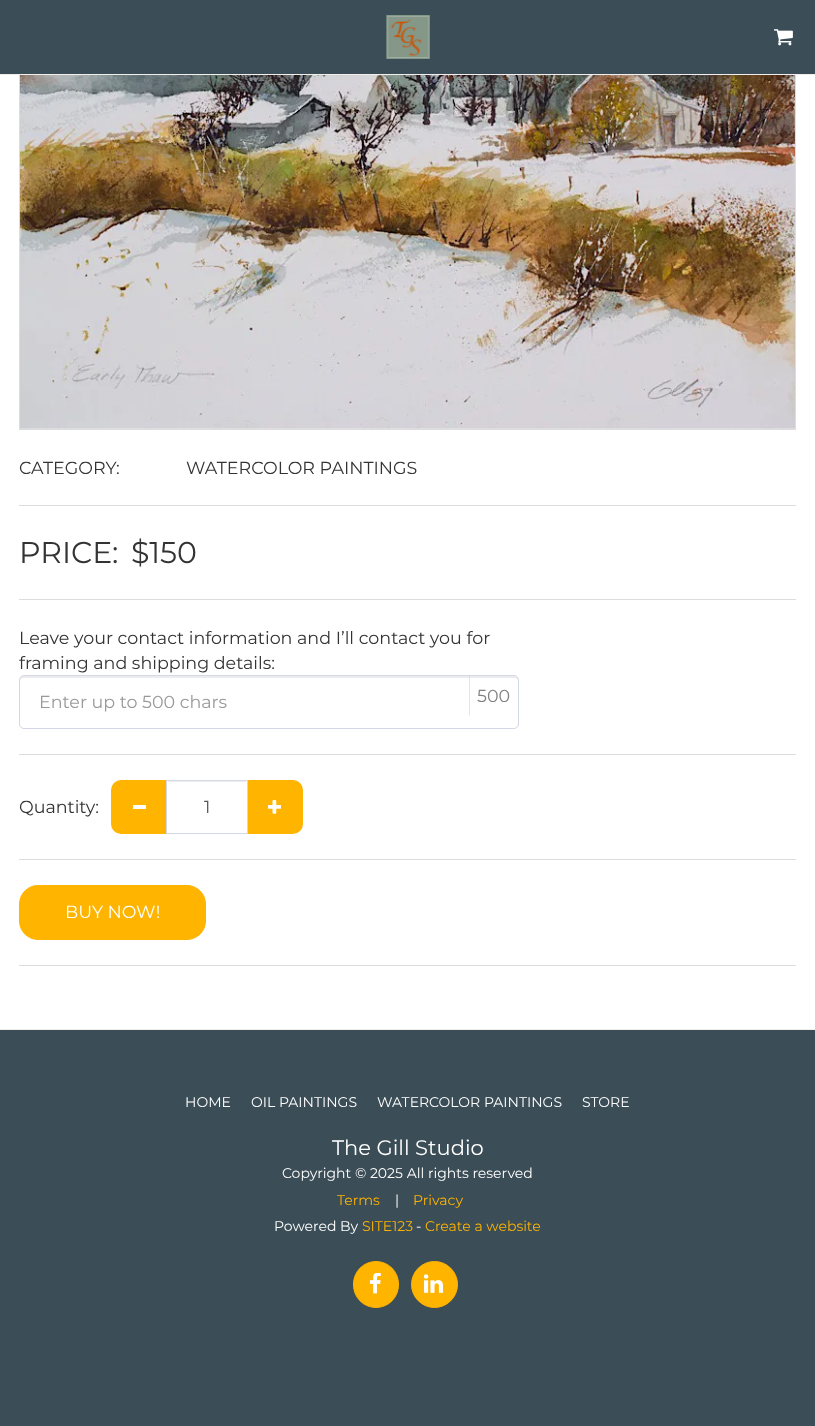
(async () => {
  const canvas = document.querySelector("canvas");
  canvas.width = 815;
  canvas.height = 1426;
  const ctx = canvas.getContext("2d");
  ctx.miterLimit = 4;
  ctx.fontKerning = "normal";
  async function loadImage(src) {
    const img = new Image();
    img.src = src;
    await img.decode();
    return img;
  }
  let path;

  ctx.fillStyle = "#ffffff";
  ctx.fillRect(0, 0, 815, 1426);
  ctx.strokeStyle = "#dddddd";
  ctx.strokeRect(19.5, -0.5, 776, 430);
  ctx.fillStyle = "#3b4d56";
  ctx.fillRect(0, 0, 815, 74);
  ctx.fillStyle = "#f3eeee";
  ctx.fillRect(0, 74, 815, 1);
  ctx.drawImage(await loadImage("img/1.png"), 386, 15, 44, 44);
  ctx.drawImage(await loadImage("img/2.png"), 774, 29, 19, 17);
  ctx.drawImage(await loadImage("img/3.png"), 20, 75, 775, 354);
  ctx.fillStyle = "#dddddd";
  ctx.fillRect(19, 505, 777, 1);
  ctx.fillRect(19, 599, 777, 1);
  ctx.fillStyle = "#ececec";
  path = new Path2D("M24 678H514C516 678 518 679 518 681C518 678 517 676 514 676H24C21 676 20 678 20 681C20 679 22 678 24 678Z");
  ctx.fill(path);
  ctx.beginPath();
  ctx.roundRect(19.5, 675.5, 499, 53, 4.5);
  ctx.strokeStyle = "#d4d7e5";
  ctx.stroke();
  ctx.fillStyle = "rgba(204, 204, 204, 0.5)";
  path = new Path2D("M469 716V675L470 676V715Z");
  ctx.fill(path);
  ctx.fillStyle = "#dddddd";
  ctx.fillRect(19, 754, 777, 1);
  ctx.fillStyle = "#ffb400";
  ctx.beginPath();
  ctx.roundRect(111, 780, 57, 54, [10, 0, 0, 10]);
  ctx.fill();
  ctx.fillStyle = "#ffffff";
  ctx.fillRect(133, 805, 13, 4);
  ctx.fillStyle = "#ffb400";
  ctx.beginPath();
  ctx.roundRect(246, 780, 57, 54, [0, 10, 10, 0]);
  ctx.fill();
  ctx.fillStyle = "#ffffff";
  ctx.fillRect(167, 781, 80, 52);
  ctx.fillStyle = "#ececec";
  ctx.fillRect(168, 781, 78, 1);
  ctx.strokeRect(166.5, 780.5, 81, 53);
  ctx.drawImage(await loadImage("img/4.png"), 268, 800, 13, 14);
  ctx.fillStyle = "#dddddd";
  ctx.fillRect(19, 859, 777, 1);
  ctx.fillStyle = "#ffb400";
  ctx.beginPath();
  ctx.roundRect(19.5, 885.5, 186, 54, 18.5);
  ctx.fill();
  ctx.strokeStyle = "#ffb400";
  ctx.stroke();
  for (const [x, y, w, h, color] of [
    [19, 965, 777, 1, "#dddddd"],
    [0, 1030, 815, 396, "#3b4d56"],
    [0, 1029, 815, 1, "#f3eeee"],
  ]) {
    ctx.fillStyle = color;
    ctx.fillRect(x, y, w, h);
  }
  ctx.fillStyle = "#ffb400";
  ctx.beginPath();
  ctx.roundRect(353.5, 1261.5, 45, 46, 22.5);
  ctx.fill();
  ctx.stroke();
  ctx.drawImage(await loadImage("img/5.png"), 369, 1273, 12, 21);
  ctx.beginPath();
  ctx.arc(434.5, 1284.5, 23, 0, Math.PI * 2);
  ctx.fill();
  ctx.stroke();
  ctx.drawImage(await loadImage("img/6.png"), 424, 1274, 19, 19);
  ctx.font = "17.5px Montserrat";
  ctx.fillStyle = "#333333";
  ctx.fillText("CATEGORY:", 19, 474);
  ctx.fillText("WATERCOLOR PAINTINGS", 186, 474);
  ctx.font = "30px Montserrat";
  ctx.fillText("PRICE:", 19, 563);
  ctx.fillText("$150", 131, 563);
  ctx.font = "17.5px Montserrat";
  ctx.fillText("Leave your contact information and I’ll contact you for", 19, 644);
  ctx.fillText("framing and shipping details:", 19, 669);
  ctx.fillStyle = "#999999";
  ctx.fillText("Enter up to 500 chars", 39, 708);
  ctx.fillStyle = "#808080";
  ctx.fillText("500", 477, 702);
  ctx.fillStyle = "#333333";
  ctx.fillText("Quantity:", 19, 813);
  ctx.fillStyle = "#555555";
  ctx.fillText("1", 204, 813);
  ctx.fillStyle = "#ffffff";
  ctx.fillText("BUY NOW!", 65, 918);
  ctx.font = "14px Montserrat";
  for (const [text, x, y] of [
    ["HOME", 185, 1107],
    ["OIL PAINTINGS", 251, 1107],
    ["WATERCOLOR PAINTINGS", 377, 1107],
    ["STORE", 582, 1107],
  ]) {
    ctx.fillText(text, x, y);
  }
  ctx.font = "21px Montserrat";
  ctx.fillText("The Gill Studio", 332, 1155);
  ctx.font = "14px Montserrat";
  ctx.fillText("Copyright © 2025 All rights reserved", 282, 1178);
  ctx.fillStyle = "#ffb400";
  ctx.fillText("Terms", 337, 1205);
  ctx.fillStyle = "#ffffff";
  ctx.fillText("|", 395, 1205);
  ctx.fillStyle = "#ffb400";
  ctx.fillText("Privacy", 413, 1205);
  ctx.fillStyle = "#ffffff";
  ctx.fillText("Powered By", 274, 1231);
  ctx.fillStyle = "#ffb400";
  ctx.fillText("SITE123", 362, 1231);
  ctx.fillStyle = "#ffffff";
  ctx.fillText("-", 416, 1231);
  ctx.fillStyle = "#ffb400";
  ctx.fillText("Create a website", 425, 1231);
})();
